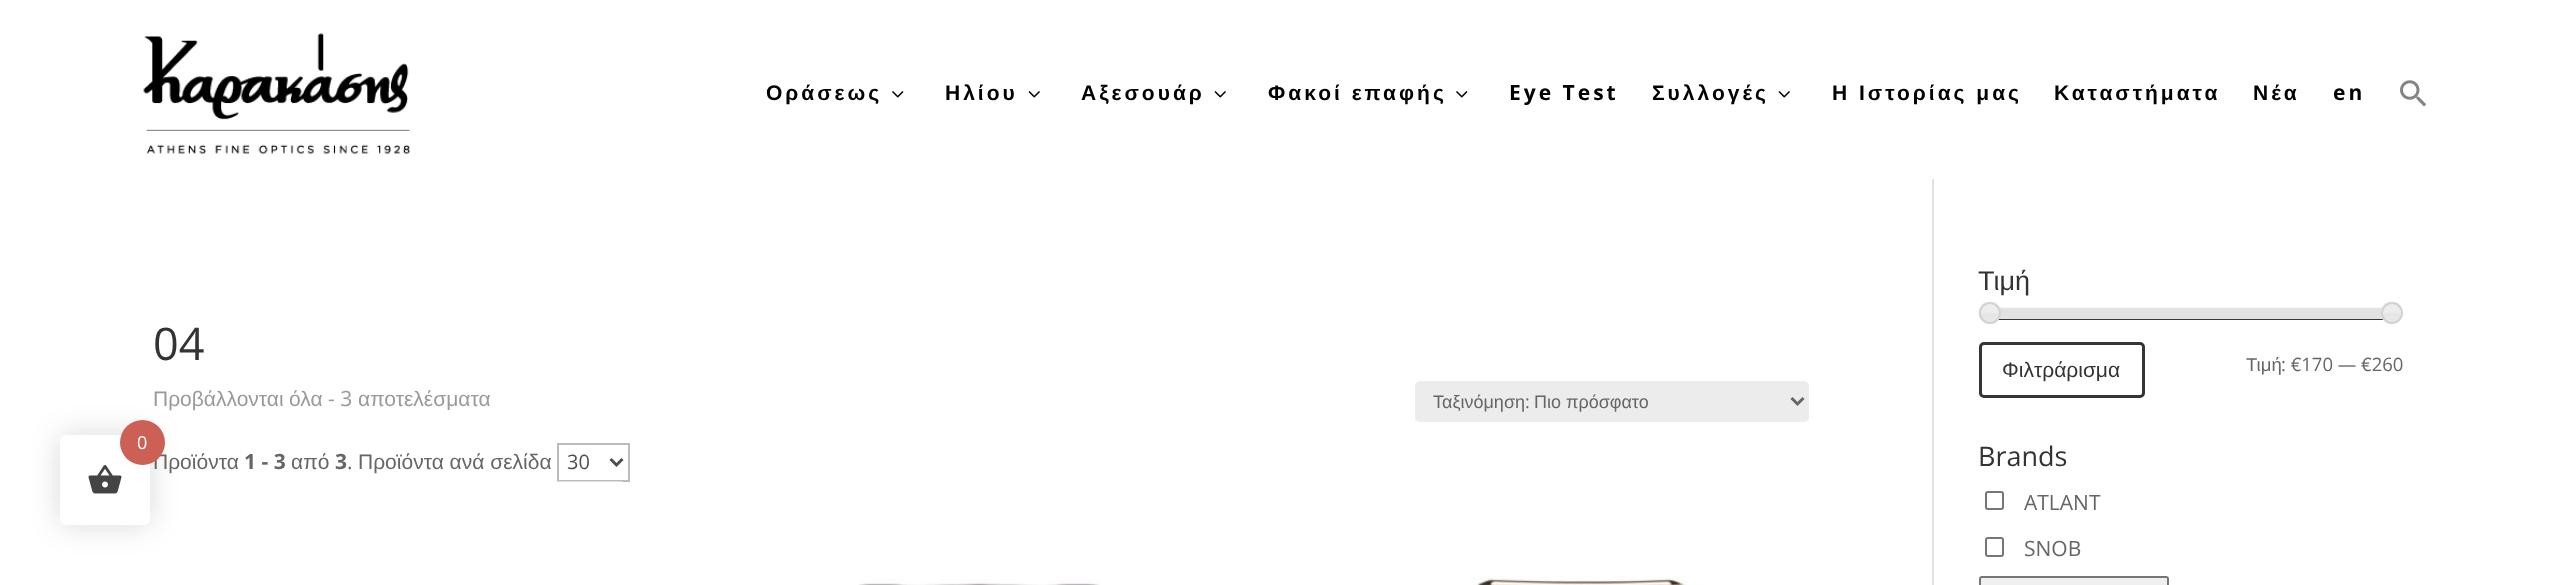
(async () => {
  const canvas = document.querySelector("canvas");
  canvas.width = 2556;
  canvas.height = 585;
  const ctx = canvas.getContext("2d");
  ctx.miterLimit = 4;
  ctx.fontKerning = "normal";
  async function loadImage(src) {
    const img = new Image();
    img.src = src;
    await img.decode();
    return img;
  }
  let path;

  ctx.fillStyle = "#ffffff";
  ctx.fillRect(0, 0, 2556, 585);
  ctx.fillStyle = "rgba(0, 0, 0, 0.15)";
  ctx.filter = "blur(15px)";
  ctx.beginPath();
  ctx.roundRect(60, 435, 90, 90, 6);
  ctx.fill();
  ctx.filter = "none";
  ctx.fillStyle = "#ffffff";
  ctx.beginPath();
  ctx.roundRect(60, 435, 90, 90, 6);
  ctx.fill();
  ctx.drawImage(await loadImage("img/1.png"), 88, 465, 34, 29);
  ctx.drawImage(await loadImage("img/2.png"), 143, 33, 268, 121);
  ctx.drawImage(await loadImage("img/3.png"), 892, 91, 12, 7);
  ctx.drawImage(await loadImage("img/4.png"), 1028, 91, 12, 7);
  ctx.drawImage(await loadImage("img/4.png"), 1214, 91, 12, 7);
  ctx.drawImage(await loadImage("img/3.png"), 1456, 91, 12, 7);
  ctx.drawImage(await loadImage("img/4.png"), 1778, 91, 12, 7);
  ctx.drawImage(await loadImage("img/5.png"), 2400, 80, 27, 27);
  ctx.fillStyle = "#e2e2e2";
  ctx.fillRect(1932, 179, 2, 406);
  ctx.fillStyle = "#ececec";
  ctx.beginPath();
  ctx.roundRect(1415, 381, 394, 41, 5);
  ctx.fill();
  path = new Path2D("M1791.5 398L1797.5 404L1803.5 398");
  ctx.strokeStyle = "#666666";
  ctx.lineWidth = 3;
  ctx.stroke(path);
  ctx.strokeStyle = "#bbbbbb";
  ctx.lineWidth = 2;
  ctx.strokeRect(558, 444, 71, 37);
  path = new Path2D("M610.5 459L616.5 465L622.5 459");
  ctx.strokeStyle = "#4e4e4e";
  ctx.lineWidth = 3;
  ctx.stroke(path);
  ctx.drawImage(await loadImage("img/6.png"), 557, 481, 66, 1);
  ctx.drawImage(await loadImage("img/7.png"), 858, 579, 242, 6);
  ctx.drawImage(await loadImage("img/8.png"), 1471, 575, 237, 10);
  ctx.fillStyle = "#000000";
  ctx.fillRect(1998, 319, 386, 1);
  ctx.drawImage(await loadImage("img/10.png"), 1998, 307, 386, 13);
  ctx.drawImage(await loadImage("img/9.png"), 1978, 301, 23, 23);
  ctx.beginPath();
  ctx.arc(1990, 313, 10, 0, Math.PI * 2);
  ctx.strokeStyle = "#d3d3d3";
  ctx.lineWidth = 2;
  ctx.stroke();
  ctx.drawImage(await loadImage("img/11.png"), 2381, 301, 22, 23);
  ctx.beginPath();
  ctx.arc(2392, 313, 10, 0, Math.PI * 2);
  ctx.stroke();
  ctx.beginPath();
  ctx.roundRect(1980.5, 343.5, 163, 53, 3.5);
  ctx.strokeStyle = "#353535";
  ctx.lineWidth = 3;
  ctx.stroke();
  ctx.beginPath();
  ctx.roundRect(1986, 492, 17, 17, 2);
  ctx.strokeStyle = "#767676";
  ctx.lineWidth = 2;
  ctx.stroke();
  ctx.beginPath();
  ctx.roundRect(1986, 538, 17, 18, 2);
  ctx.stroke();
  ctx.fillStyle = "#efefef";
  ctx.beginPath();
  ctx.roundRect(1980, 577, 188, 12, 2);
  ctx.fill();
  ctx.stroke();
  ctx.letterSpacing = "3px";
  ctx.font = "bold 21px Liberation Sans";
  ctx.fillStyle = "#000000";
  for (const [text, x, y] of [
    ["Οράσεως", 766, 100],
    ["Ηλίου", 945, 100],
    ["Αξεσουάρ", 1081, 100],
    ["Φακοί επαφής", 1268, 100],
  ]) {
    ctx.fillText(text, x, y);
  }
  ctx.font = "bold 21px Open Sans";
  ctx.fillText("Eye Test", 1509, 100);
  ctx.font = "bold 21px Liberation Sans";
  for (const [text, x, y] of [
    ["Συλλογές", 1652, 100],
    ["Η Ιστορίας μας", 1832, 100],
    ["Καταστήματα", 2054, 100],
    ["Νέα", 2253, 100],
  ]) {
    ctx.fillText(text, x, y);
  }
  ctx.font = "bold 21px Open Sans";
  ctx.fillText("en", 2333, 100);
  ctx.letterSpacing = "0px";
  ctx.font = "45px Open Sans";
  ctx.fillStyle = "#333333";
  ctx.fillText("04", 153, 360);
  ctx.font = "21px Liberation Sans";
  ctx.fillStyle = "#999999";
  ctx.fillText("Προβάλλονται", 153, 406);
  ctx.fillText("όλα", 289, 406);
  ctx.font = "21px Open Sans";
  ctx.fillText("- 3", 328, 406);
  ctx.font = "21px Liberation Sans";
  ctx.fillText("αποτελέσματα", 358, 406);
  ctx.font = "18px Liberation Sans";
  ctx.fillStyle = "#666666";
  ctx.fillText("Ταξινόμηση", 1433, 408);
  ctx.font = "18px Open Sans";
  ctx.fillText(":", 1525, 408);
  ctx.font = "18px Liberation Sans";
  ctx.fillText("Πιο πρόσφατο", 1534, 408);
  ctx.font = "21px Liberation Sans";
  ctx.fillText("Προϊόντα", 153, 469);
  ctx.fillStyle = "#cc6055";
  ctx.beginPath();
  ctx.arc(142.5, 442.5, 22.5, 0, Math.PI * 2);
  ctx.fill();
  ctx.font = "18px Open Sans";
  ctx.fillStyle = "#ffffff";
  ctx.fillText("0", 137, 449);
  ctx.font = "bold 21px Open Sans";
  ctx.fillStyle = "#666666";
  ctx.fillText("1 - 3", 244, 469);
  ctx.font = "21px Liberation Sans";
  ctx.fillText("από", 291, 469);
  ctx.font = "bold 21px Open Sans";
  ctx.fillText("3", 335, 469);
  ctx.font = "21px Open Sans";
  ctx.fillText(".", 347, 469);
  ctx.font = "21px Liberation Sans";
  ctx.fillText("Προϊόντα ανά σελίδα", 358, 469);
  ctx.font = "20px Open Sans";
  ctx.fillStyle = "#4e4e4e";
  ctx.fillText("30", 567, 469);
  ctx.font = "27px Liberation Sans";
  ctx.fillStyle = "#333333";
  ctx.fillText("Τιμή", 1978, 290);
  ctx.font = "21px Liberation Sans";
  ctx.fillText("Φιλτράρισμα", 2002, 377);
  ctx.font = "18.5px Liberation Sans";
  ctx.fillStyle = "#666666";
  ctx.fillText("Τιμή", 2246, 371);
  ctx.font = "18.5px Open Sans";
  ctx.fillText(": €170 — €260", 2281, 371);
  ctx.font = "27px Open Sans";
  ctx.fillStyle = "#333333";
  ctx.fillText("Brands", 1978, 466);
  ctx.font = "21px Open Sans";
  ctx.fillStyle = "#666666";
  ctx.fillText("ATLANT", 2024, 510);
  ctx.fillText("SNOB", 2024, 556);
})();
